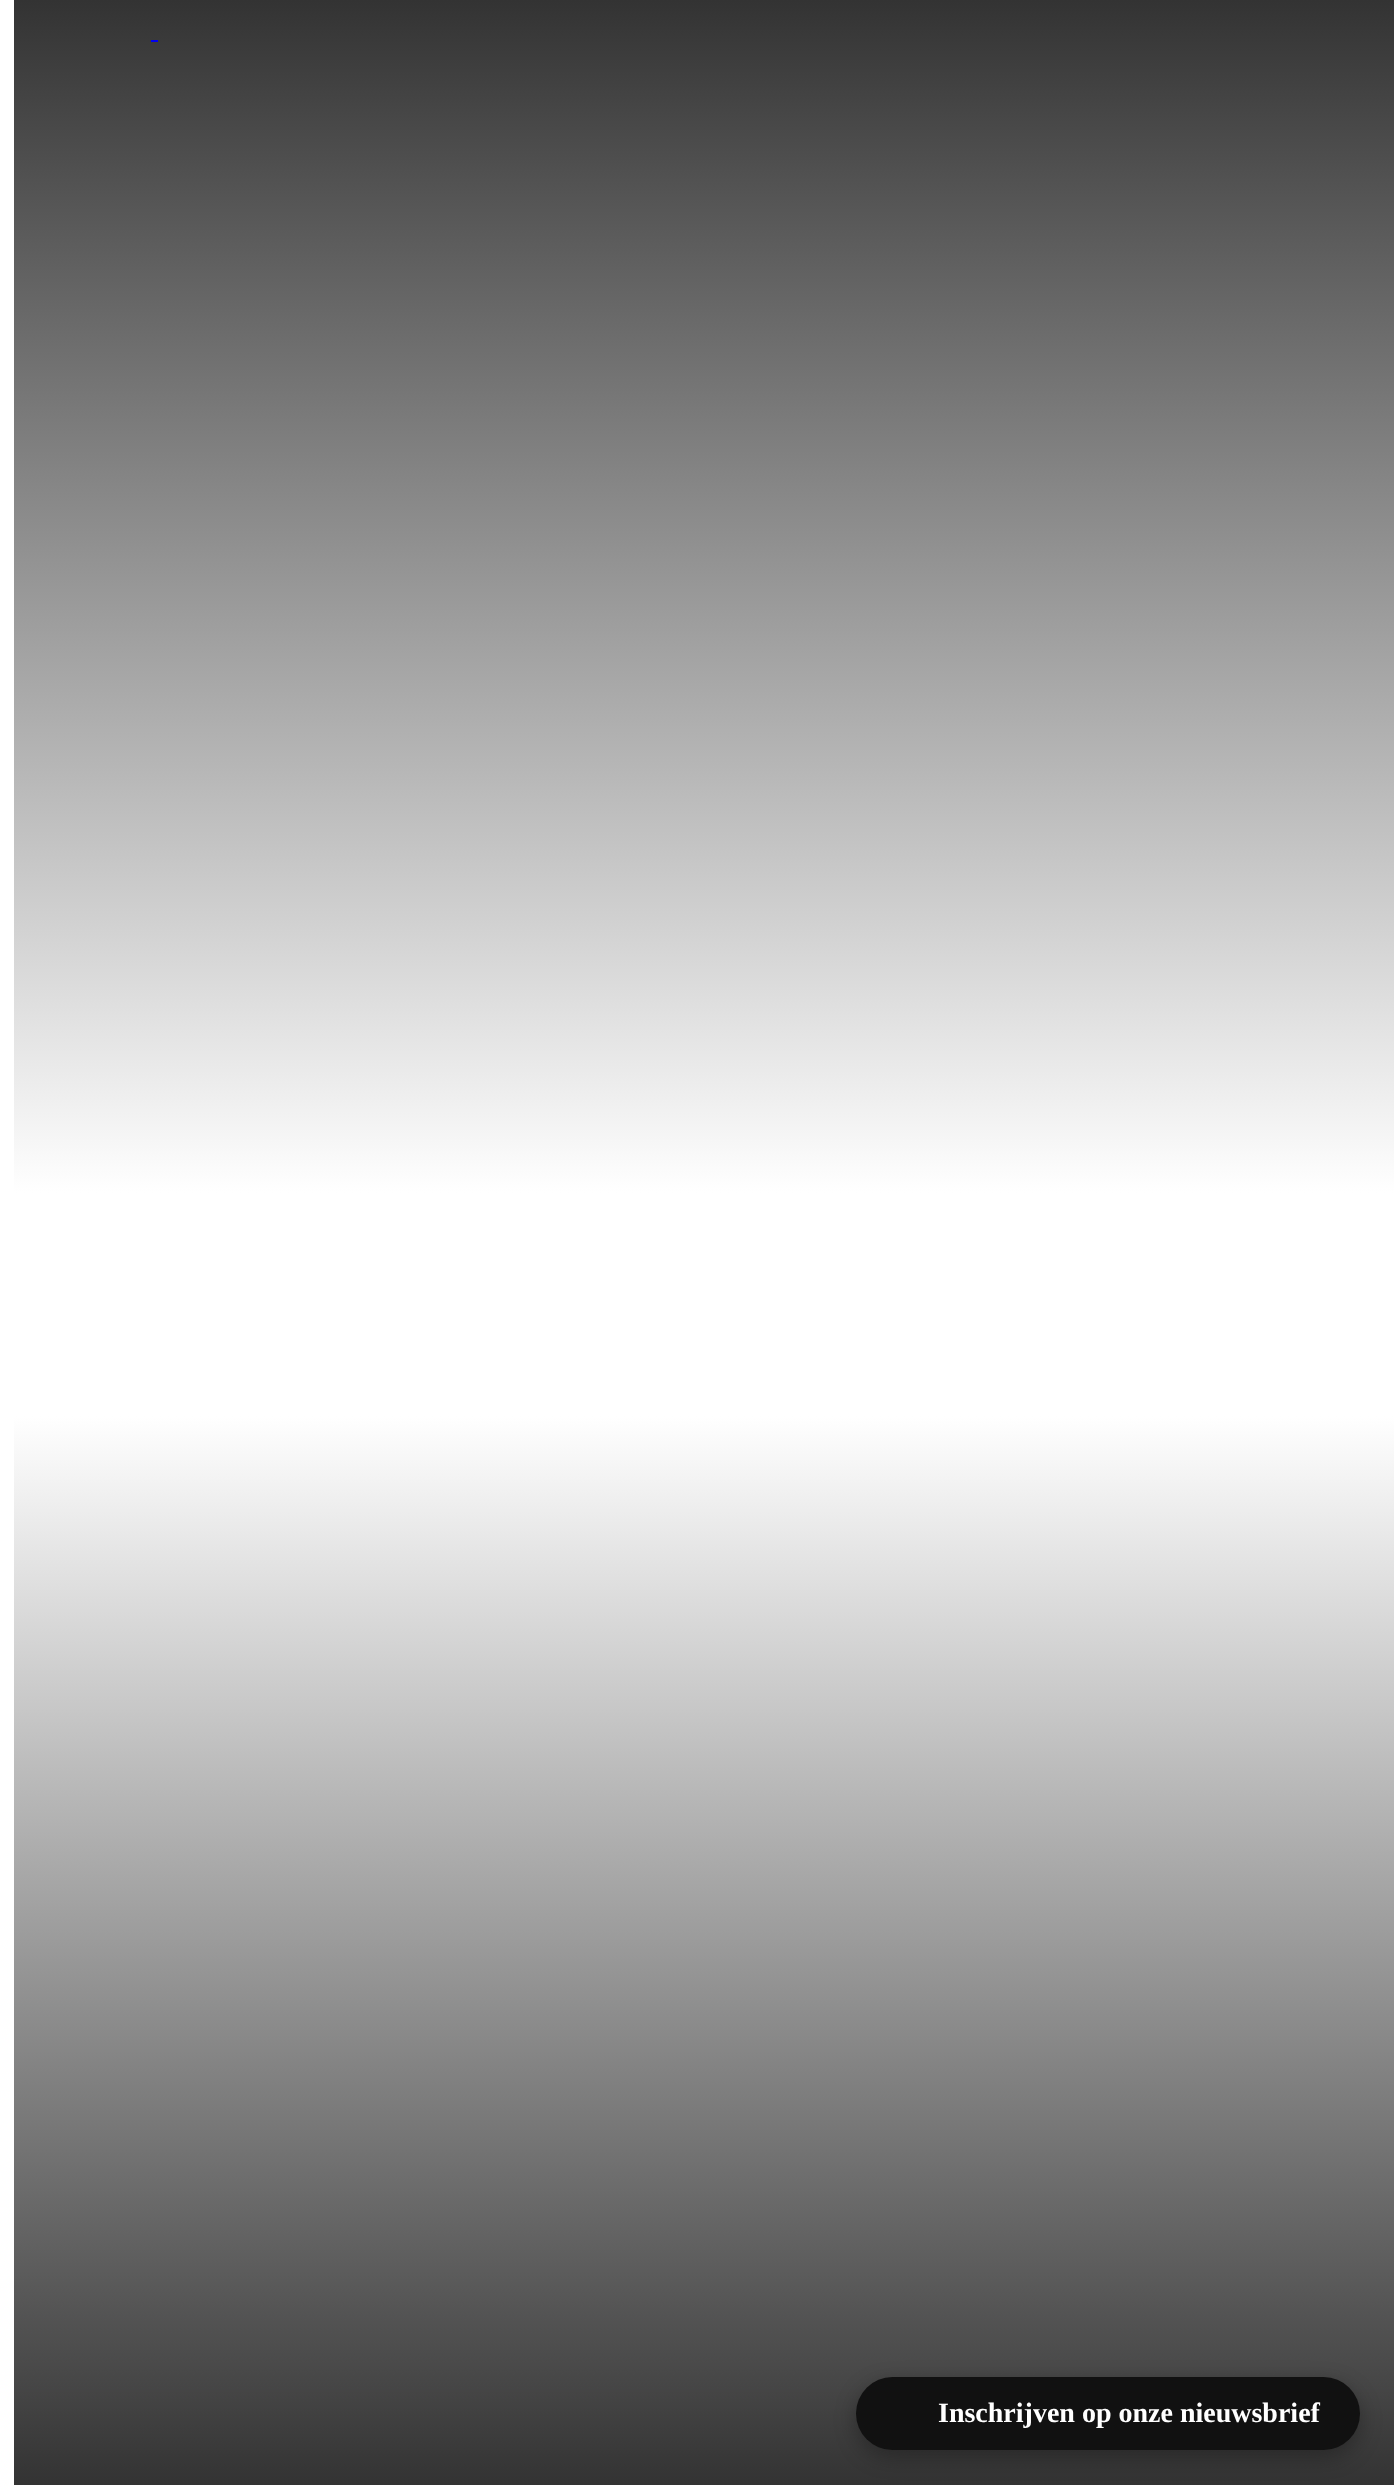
(async () => {
  const canvas = document.querySelector("canvas");
  canvas.width = 1394;
  canvas.height = 2485;
  const ctx = canvas.getContext("2d");
  ctx.miterLimit = 4;
  ctx.fontKerning = "normal";
  let gradient;

  ctx.fillStyle = "#ffffff";
  ctx.fillRect(0, 0, 1394, 2485);
  gradient = ctx.createLinearGradient(711, 0, 711, 2485);
  gradient.addColorStop(0, "#333333");
  gradient.addColorStop(0.48, "#ffffff");
  gradient.addColorStop(0.57, "#ffffff");
  gradient.addColorStop(1, "#333333");
  ctx.fillStyle = gradient;
  ctx.fillRect(14, 0, 1380, 2485);
  ctx.fillStyle = "#0000ee";
  ctx.fillRect(151, 40, 7, 2);
  ctx.fillStyle = "rgba(0, 0, 0, 0.3)";
  ctx.filter = "blur(10.5px)";
  ctx.beginPath();
  ctx.roundRect(856, 2384, 504, 73, 36.5);
  ctx.fill();
  ctx.filter = "none";
  ctx.fillStyle = "#111111";
  ctx.beginPath();
  ctx.roundRect(856, 2377, 504, 73, 36.5);
  ctx.fill();
  ctx.font = "bold 28px Liberation Serif";
  ctx.fillStyle = "#ffffff";
  ctx.fillText("Inschrijven op onze nieuwsbrief", 938, 2422);
})();
